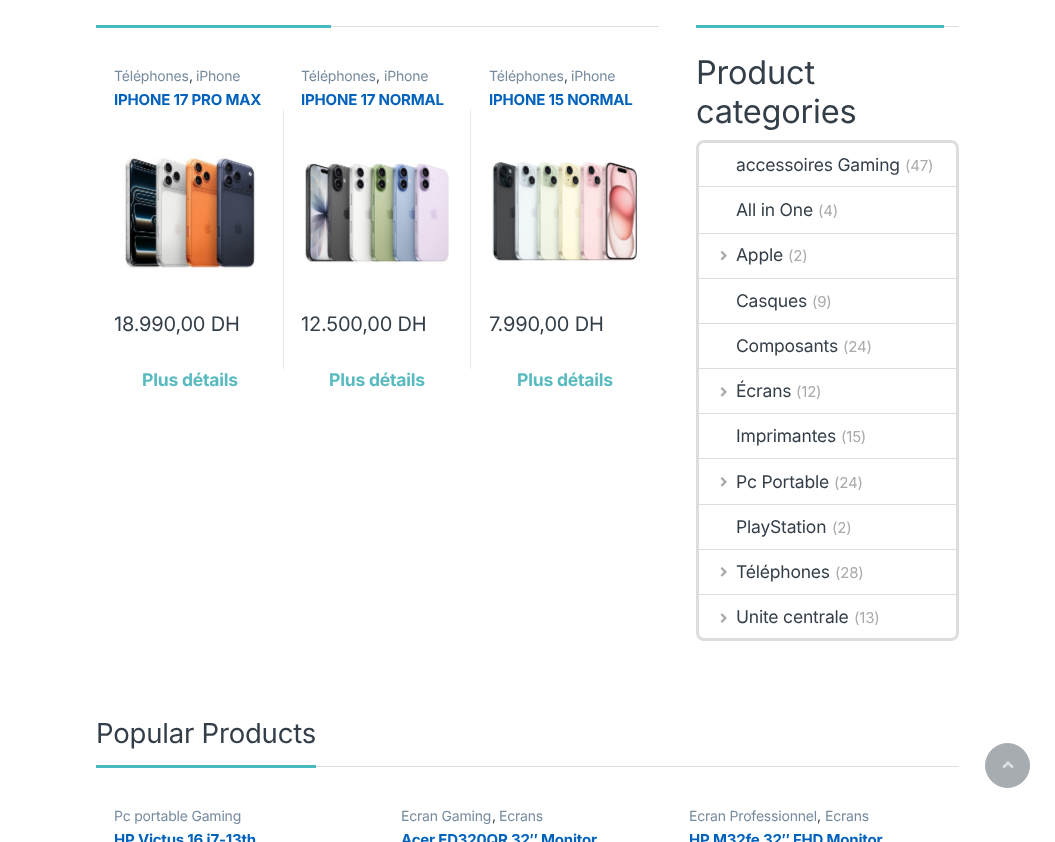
(async () => {
  const canvas = document.querySelector("canvas");
  canvas.width = 1055;
  canvas.height = 842;
  const ctx = canvas.getContext("2d");
  ctx.miterLimit = 4;
  ctx.fontKerning = "normal";
  async function loadImage(src) {
    const img = new Image();
    img.src = src;
    await img.decode();
    return img;
  }

  ctx.fillStyle = "#ffffff";
  ctx.fillRect(0, 0, 1055, 842);
  ctx.fillStyle = "#dddddd";
  ctx.fillRect(331, 26, 328, 1);
  ctx.fillStyle = "#48bac1";
  ctx.fillRect(96, 25, 235, 3);
  ctx.drawImage(await loadImage("img/1.png"), 122, 154, 134, 115);
  ctx.fillStyle = "#eaeaea";
  ctx.fillRect(283, 109, 1, 260);
  ctx.drawImage(await loadImage("img/2.png"), 305, 163, 144, 100);
  ctx.fillRect(470, 109, 1, 260);
  ctx.drawImage(await loadImage("img/3.png"), 492, 162, 146, 99);
  ctx.fillStyle = "#dddddd";
  ctx.fillRect(944, 26, 15, 1);
  ctx.fillStyle = "#48bac1";
  ctx.fillRect(696, 25, 248, 3);
  ctx.beginPath();
  ctx.roundRect(697.5, 141.5, 260, 498, 6.5);
  ctx.strokeStyle = "#dddddd";
  ctx.lineWidth = 3;
  ctx.stroke();
  ctx.fillStyle = "#dddddd";
  ctx.fillRect(699, 186, 257, 1);
  ctx.fillRect(699, 233, 257, 1);
  ctx.drawImage(await loadImage("img/4.png"), 720, 251, 7, 10);
  for (const [x, y, w, h, color] of [
    [699, 278, 257, 1, "#dddddd"],
    [699, 323, 257, 1, "#dddddd"],
    [699, 368, 257, 1, "#dddddd"],
  ]) {
    ctx.fillStyle = color;
    ctx.fillRect(x, y, w, h);
  }
  ctx.drawImage(await loadImage("img/5.png"), 720, 387, 7, 10);
  ctx.fillRect(699, 413, 257, 1);
  ctx.fillRect(699, 458, 257, 1);
  ctx.drawImage(await loadImage("img/5.png"), 720, 477, 7, 10);
  ctx.fillRect(699, 504, 257, 1);
  ctx.fillRect(699, 549, 257, 1);
  ctx.drawImage(await loadImage("img/5.png"), 720, 567, 7, 10);
  ctx.fillRect(699, 594, 257, 1);
  ctx.drawImage(await loadImage("img/6.png"), 720, 613, 7, 10);
  ctx.fillRect(316, 766, 643, 1);
  ctx.fillStyle = "#48bac1";
  ctx.fillRect(96, 765, 220, 3);
  ctx.fillStyle = "#a7acb1";
  ctx.beginPath();
  ctx.arc(1007.5, 765.5, 22, 0, Math.PI * 2);
  ctx.fill();
  ctx.strokeStyle = "#a7acb1";
  ctx.lineWidth = 1;
  ctx.stroke();
  ctx.drawImage(await loadImage("img/7.png"), 1002, 761, 12, 8);
  ctx.letterSpacing = "-0.2px";
  ctx.font = "14px Inter";
  ctx.fillStyle = "#768b9e";
  ctx.fillText("Téléphones", 114, 81);
  ctx.fillStyle = "#333e48";
  ctx.fillText(",", 189, 81);
  ctx.fillStyle = "#768b9e";
  ctx.fillText("iPhone", 196, 81);
  ctx.font = "bold 15px Inter";
  ctx.fillStyle = "#0062bd";
  ctx.fillText("IPHONE 17 PRO MAX", 114, 105);
  ctx.font = "20px Inter";
  ctx.fillStyle = "#333e48";
  ctx.fillText("18.990,00 DH", 114, 331);
  ctx.font = "bold 17.5px Inter";
  ctx.fillStyle = "#59bbc0";
  ctx.fillText("Plus détails", 142, 386);
  ctx.font = "14px Inter";
  ctx.fillStyle = "#768b9e";
  ctx.fillText("Téléphones", 301, 81);
  ctx.fillStyle = "#333e48";
  ctx.fillText(",", 376, 81);
  ctx.fillStyle = "#768b9e";
  ctx.fillText("iPhone", 384, 81);
  ctx.font = "bold 15px Inter";
  ctx.fillStyle = "#0062bd";
  ctx.fillText("IPHONE 17 NORMAL", 301, 105);
  ctx.font = "20px Inter";
  ctx.fillStyle = "#333e48";
  ctx.fillText("12.500,00 DH", 301, 331);
  ctx.font = "bold 17.5px Inter";
  ctx.fillStyle = "#59bbc0";
  ctx.fillText("Plus détails", 329, 386);
  ctx.font = "14px Inter";
  ctx.fillStyle = "#768b9e";
  ctx.fillText("Téléphones", 489, 81);
  ctx.fillStyle = "#333e48";
  ctx.fillText(",", 564, 81);
  ctx.fillStyle = "#768b9e";
  ctx.fillText("iPhone", 571, 81);
  ctx.font = "bold 15px Inter";
  ctx.fillStyle = "#0062bd";
  ctx.fillText("IPHONE 15 NORMAL", 489, 105);
  ctx.font = "20px Inter";
  ctx.fillStyle = "#333e48";
  ctx.fillText("7.990,00 DH", 489, 331);
  ctx.font = "bold 17.5px Inter";
  ctx.fillStyle = "#59bbc0";
  ctx.fillText("Plus détails", 517, 386);
  ctx.font = "32.5px Inter";
  ctx.fillStyle = "#333e48";
  ctx.fillText("Product", 696, 84);
  ctx.fillText("categories", 696, 123);
  ctx.font = "17.5px Inter";
  ctx.fillText("accessoires Gaming", 736, 171);
  ctx.font = "15px Inter";
  ctx.fillStyle = "#aaaaaa";
  ctx.fillText("(47)", 905, 171);
  ctx.font = "17.5px Inter";
  ctx.fillStyle = "#333e48";
  ctx.fillText("All in One", 736, 216);
  ctx.font = "15px Inter";
  ctx.fillStyle = "#aaaaaa";
  ctx.fillText("(4)", 818, 216);
  ctx.font = "17.5px Inter";
  ctx.fillStyle = "#333e48";
  ctx.fillText("Apple", 736, 261);
  ctx.font = "15px Inter";
  ctx.fillStyle = "#aaaaaa";
  ctx.fillText("(2)", 788, 261);
  ctx.font = "17.5px Inter";
  ctx.fillStyle = "#333e48";
  ctx.fillText("Casques", 736, 307);
  ctx.font = "15px Inter";
  ctx.fillStyle = "#aaaaaa";
  ctx.fillText("(9)", 812, 307);
  ctx.font = "17.5px Inter";
  ctx.fillStyle = "#333e48";
  ctx.fillText("Composants", 736, 352);
  ctx.font = "15px Inter";
  ctx.fillStyle = "#aaaaaa";
  ctx.fillText("(24)", 843, 352);
  ctx.font = "17.5px Inter";
  ctx.fillStyle = "#333e48";
  ctx.fillText("Écrans", 736, 397);
  ctx.font = "15px Inter";
  ctx.fillStyle = "#aaaaaa";
  ctx.fillText("(12)", 796, 397);
  ctx.font = "17.5px Inter";
  ctx.fillStyle = "#333e48";
  ctx.fillText("Imprimantes", 736, 442);
  ctx.font = "15px Inter";
  ctx.fillStyle = "#aaaaaa";
  ctx.fillText("(15)", 841, 442);
  ctx.font = "17.5px Inter";
  ctx.fillStyle = "#333e48";
  ctx.fillText("Pc Portable", 736, 488);
  ctx.font = "15px Inter";
  ctx.fillStyle = "#aaaaaa";
  ctx.fillText("(24)", 834, 488);
  ctx.font = "17.5px Inter";
  ctx.fillStyle = "#333e48";
  ctx.fillText("PlayStation", 736, 533);
  ctx.font = "15px Inter";
  ctx.fillStyle = "#aaaaaa";
  ctx.fillText("(2)", 832, 533);
  ctx.font = "17.5px Inter";
  ctx.fillStyle = "#333e48";
  ctx.fillText("Téléphones", 736, 578);
  ctx.font = "15px Inter";
  ctx.fillStyle = "#aaaaaa";
  ctx.fillText("(28)", 835, 578);
  ctx.font = "17.5px Inter";
  ctx.fillStyle = "#333e48";
  ctx.fillText("Unite centrale", 736, 623);
  ctx.font = "15px Inter";
  ctx.fillStyle = "#aaaaaa";
  ctx.fillText("(13)", 854, 623);
  ctx.font = "27.5px Inter";
  ctx.fillStyle = "#333e48";
  ctx.fillText("Popular Products", 96, 743);
  ctx.font = "14px Inter";
  ctx.fillStyle = "#768b9e";
  ctx.fillText("Pc portable Gaming", 114, 821);
  ctx.font = "bold 15px Inter";
  ctx.fillStyle = "#0062bd";
  ctx.fillText("HP Victus 16 i7-13th", 114, 845);
  ctx.save();
  ctx.beginPath();
  ctx.rect(401, 810, 253, 15);
  ctx.clip();
  ctx.font = "14px Inter";
  ctx.fillStyle = "#768b9e";
  ctx.fillText("Écran Gaming", 401, 821);
  ctx.restore();
  ctx.font = "14px Inter";
  ctx.fillStyle = "#333e48";
  ctx.fillText(",", 492, 821);
  ctx.save();
  ctx.beginPath();
  ctx.rect(401, 810, 253, 15);
  ctx.clip();
  ctx.fillStyle = "#768b9e";
  ctx.fillText("Écrans", 499, 821);
  ctx.restore();
  ctx.font = "bold 15px Inter";
  ctx.fillStyle = "#0062bd";
  ctx.fillText("Acer ED320QR 32″ Monitor", 401, 845);
  ctx.save();
  ctx.beginPath();
  ctx.rect(689, 810, 252, 15);
  ctx.clip();
  ctx.font = "14px Inter";
  ctx.fillStyle = "#768b9e";
  ctx.fillText("Écran Professionnel", 689, 821);
  ctx.restore();
  ctx.font = "14px Inter";
  ctx.fillStyle = "#333e48";
  ctx.fillText(",", 817, 821);
  ctx.save();
  ctx.beginPath();
  ctx.rect(689, 810, 252, 15);
  ctx.clip();
  ctx.fillStyle = "#768b9e";
  ctx.fillText("Écrans", 825, 821);
  ctx.restore();
  ctx.font = "bold 15px Inter";
  ctx.fillStyle = "#0062bd";
  ctx.fillText("HP M32fe 32″ FHD Monitor", 689, 845);
})();
